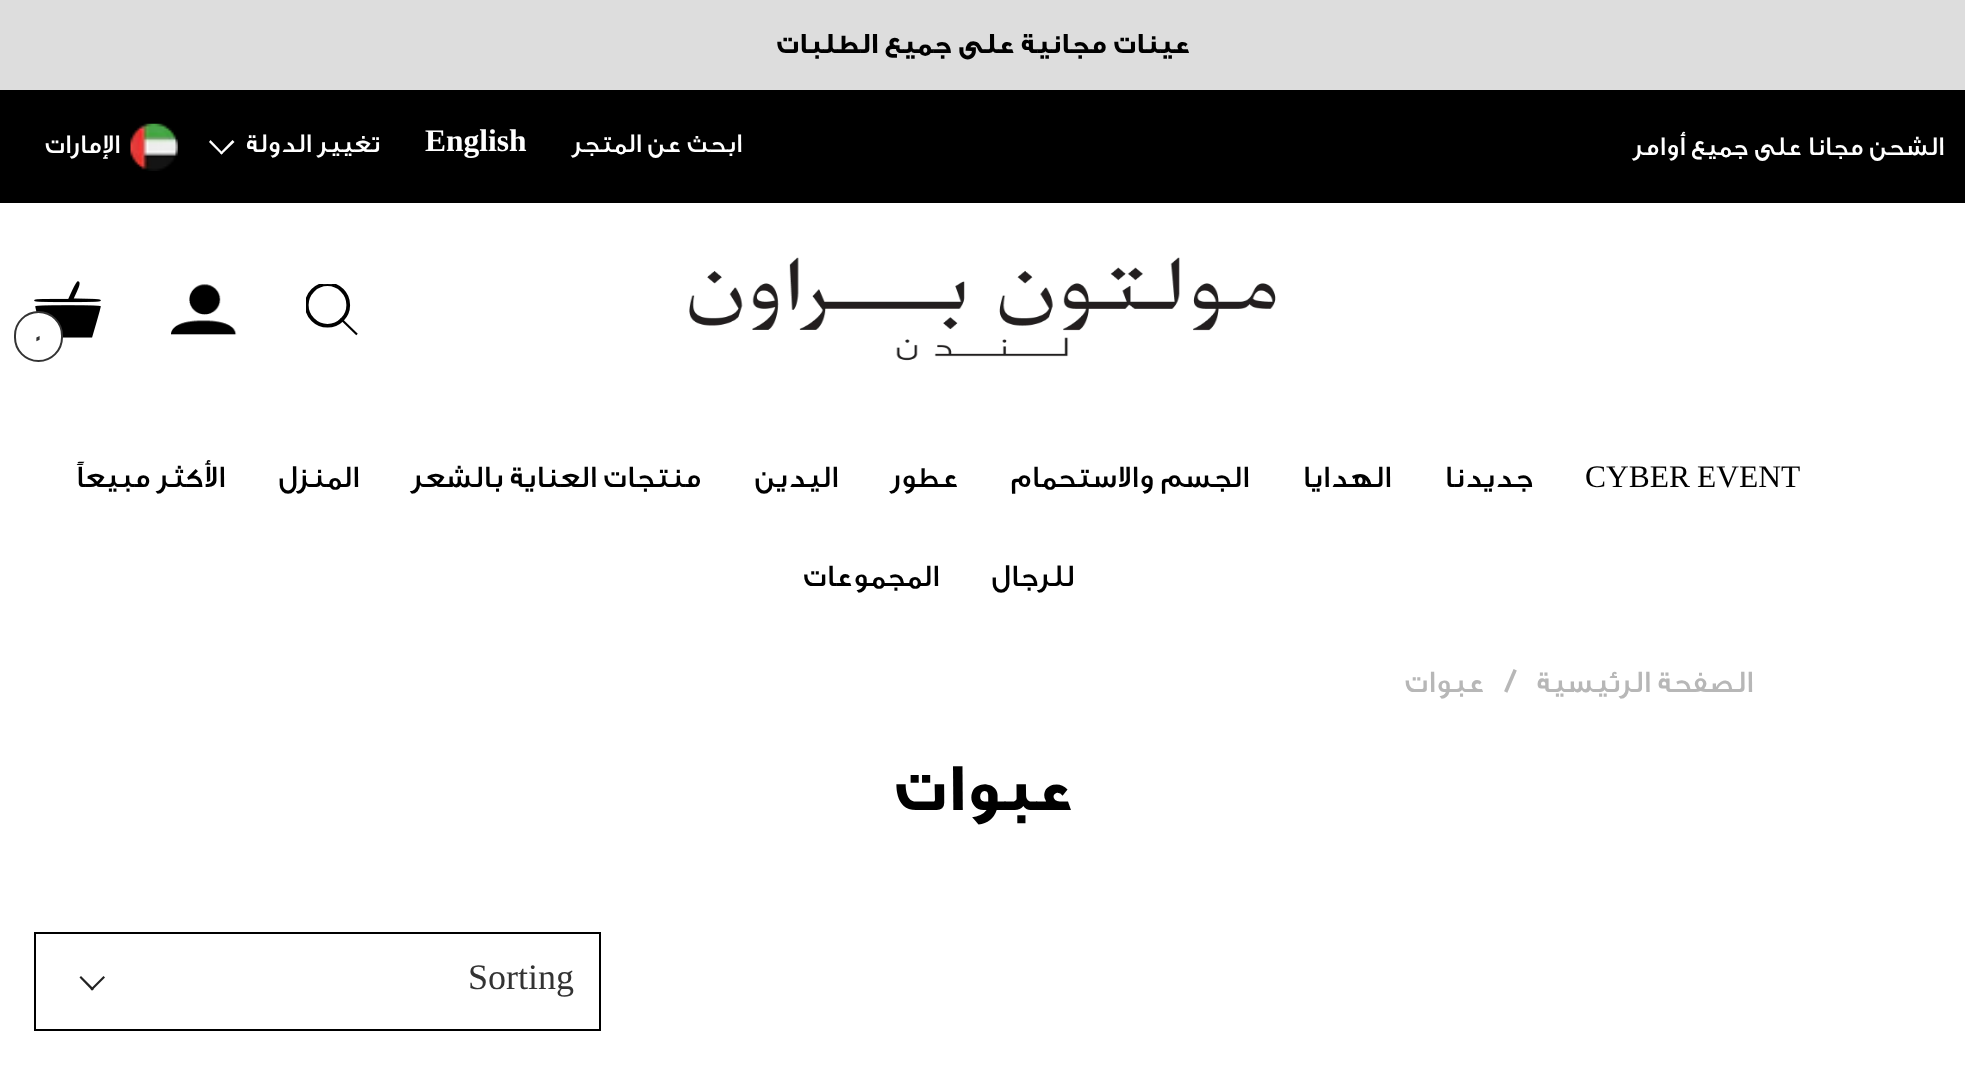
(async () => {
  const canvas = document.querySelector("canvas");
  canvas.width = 1965;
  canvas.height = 1074;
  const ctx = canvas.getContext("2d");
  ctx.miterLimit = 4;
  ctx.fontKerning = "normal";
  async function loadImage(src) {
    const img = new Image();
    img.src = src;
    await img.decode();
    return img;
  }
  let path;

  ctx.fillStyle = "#ffffff";
  ctx.fillRect(0, 0, 1965, 1074);
  ctx.fillStyle = "#dddddd";
  ctx.fillRect(0, 0, 1965, 90);
  ctx.fillStyle = "#000000";
  ctx.fillRect(0, 90, 1965, 113);
  ctx.fillStyle = "#ffffff";
  path = new Path2D("M220 153L232.5 140L234.5 142L221.5 154.5Z");
  ctx.fill(path);
  path = new Path2D("M209 142L210.5 140L223 153L221.5 154.5Z");
  ctx.fill(path);
  ctx.drawImage(await loadImage("img/1.png"), 130, 123, 48, 48);
  ctx.drawImage(await loadImage("img/2.png"), 689, 257, 587, 104);
  path = new Path2D("M357 334.5L340.5 318.5");
  ctx.strokeStyle = "#000000";
  ctx.lineWidth = 2.2;
  ctx.stroke(path);
  ctx.save();
  ctx.beginPath();
  ctx.rect(306, 284, 52, 51);
  ctx.clip();
  ctx.beginPath();
  ctx.arc(327.5, 305, 21.5, 0, Math.PI * 2);
  ctx.stroke();
  ctx.restore();
  ctx.beginPath();
  ctx.arc(327.5, 305, 20, 0, Math.PI * 2);
  ctx.stroke();
  ctx.drawImage(await loadImage("img/3.png"), 171, 284, 66, 51);
  ctx.drawImage(await loadImage("img/4.png"), 34, 281, 67, 57);
  ctx.beginPath();
  ctx.roundRect(15, 312, 47, 49, 23.5);
  ctx.fill();
  ctx.strokeStyle = "#333333";
  ctx.lineWidth = 2;
  ctx.stroke();
  ctx.strokeStyle = "#000000";
  ctx.strokeRect(35, 933, 565, 97);
  ctx.fillStyle = "#222222";
  path = new Path2D("M103.5 976L105 977.5L92 990.5L90.5 989Z");
  ctx.fill(path);
  path = new Path2D("M81 976L94 989L92 990.5L79.5 977.5Z");
  ctx.fill(path);
  ctx.direction = "rtl";
  ctx.font = "bold 29.25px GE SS";
  ctx.fillStyle = "#000000";
  ctx.fillText("عينات مجانية على جميع الطلبات", 1190, 53);
  ctx.font = "500 27px GE SS";
  ctx.fillStyle = "#ffffff";
  ctx.fillText("الشحن مجانا على جميع أوامر", 1944, 155);
  ctx.fillText("ابحث عن المتجر", 742, 152);
  ctx.direction = "ltr";
  ctx.font = "bold 31.5px Liberation Serif";
  ctx.fillText("English", 425, 151);
  ctx.direction = "rtl";
  ctx.font = "500 27px GE SS";
  ctx.fillText("تغيير الدولة", 380, 152);
  ctx.fillText("الإمارات", 120, 153);
  ctx.direction = "ltr";
  ctx.fillStyle = "#333333";
  ctx.fillText("0", 34, 343);
  ctx.wordSpacing = "-1px";
  ctx.font = "31.5px Liberation Serif";
  ctx.fillStyle = "#000000";
  ctx.fillText("CYBER EVENT", 1585, 487);
  ctx.wordSpacing = "0px";
  ctx.direction = "rtl";
  ctx.font = "500 31.5px GE SS";
  for (const [text, x, y] of [
    ["جديدنا", 1533, 487],
    ["الهدايا", 1391, 487],
    ["الجسم والاستحمام", 1249, 487],
    ["عطور", 958, 487],
    ["اليدين", 838, 487],
    ["منتجات العناية بالشعر", 701, 487],
    ["المنزل", 359, 487],
    ["الأكثر مبيعاً", 225, 487],
    ["للرجال", 1074, 586],
    ["المجموعات", 939, 586],
  ]) {
    ctx.fillText(text, x, y);
  }
  ctx.fillStyle = "#b7b7b7";
  ctx.fillText("الصفحة الرئيسية", 1753, 692);
  ctx.direction = "ltr";
  ctx.font = "500 36px GE SS";
  ctx.fillText("/", 1503, 692);
  ctx.direction = "rtl";
  ctx.font = "500 31.5px GE SS";
  ctx.fillText("عبوات", 1484, 692);
  ctx.font = "bold 67.5px GE SS";
  ctx.fillStyle = "#000000";
  ctx.fillText("عبوات", 1073, 810);
  ctx.direction = "ltr";
  ctx.font = "36px Liberation Serif";
  ctx.fillStyle = "#333333";
  ctx.fillText("Sorting", 468, 989);
})();
